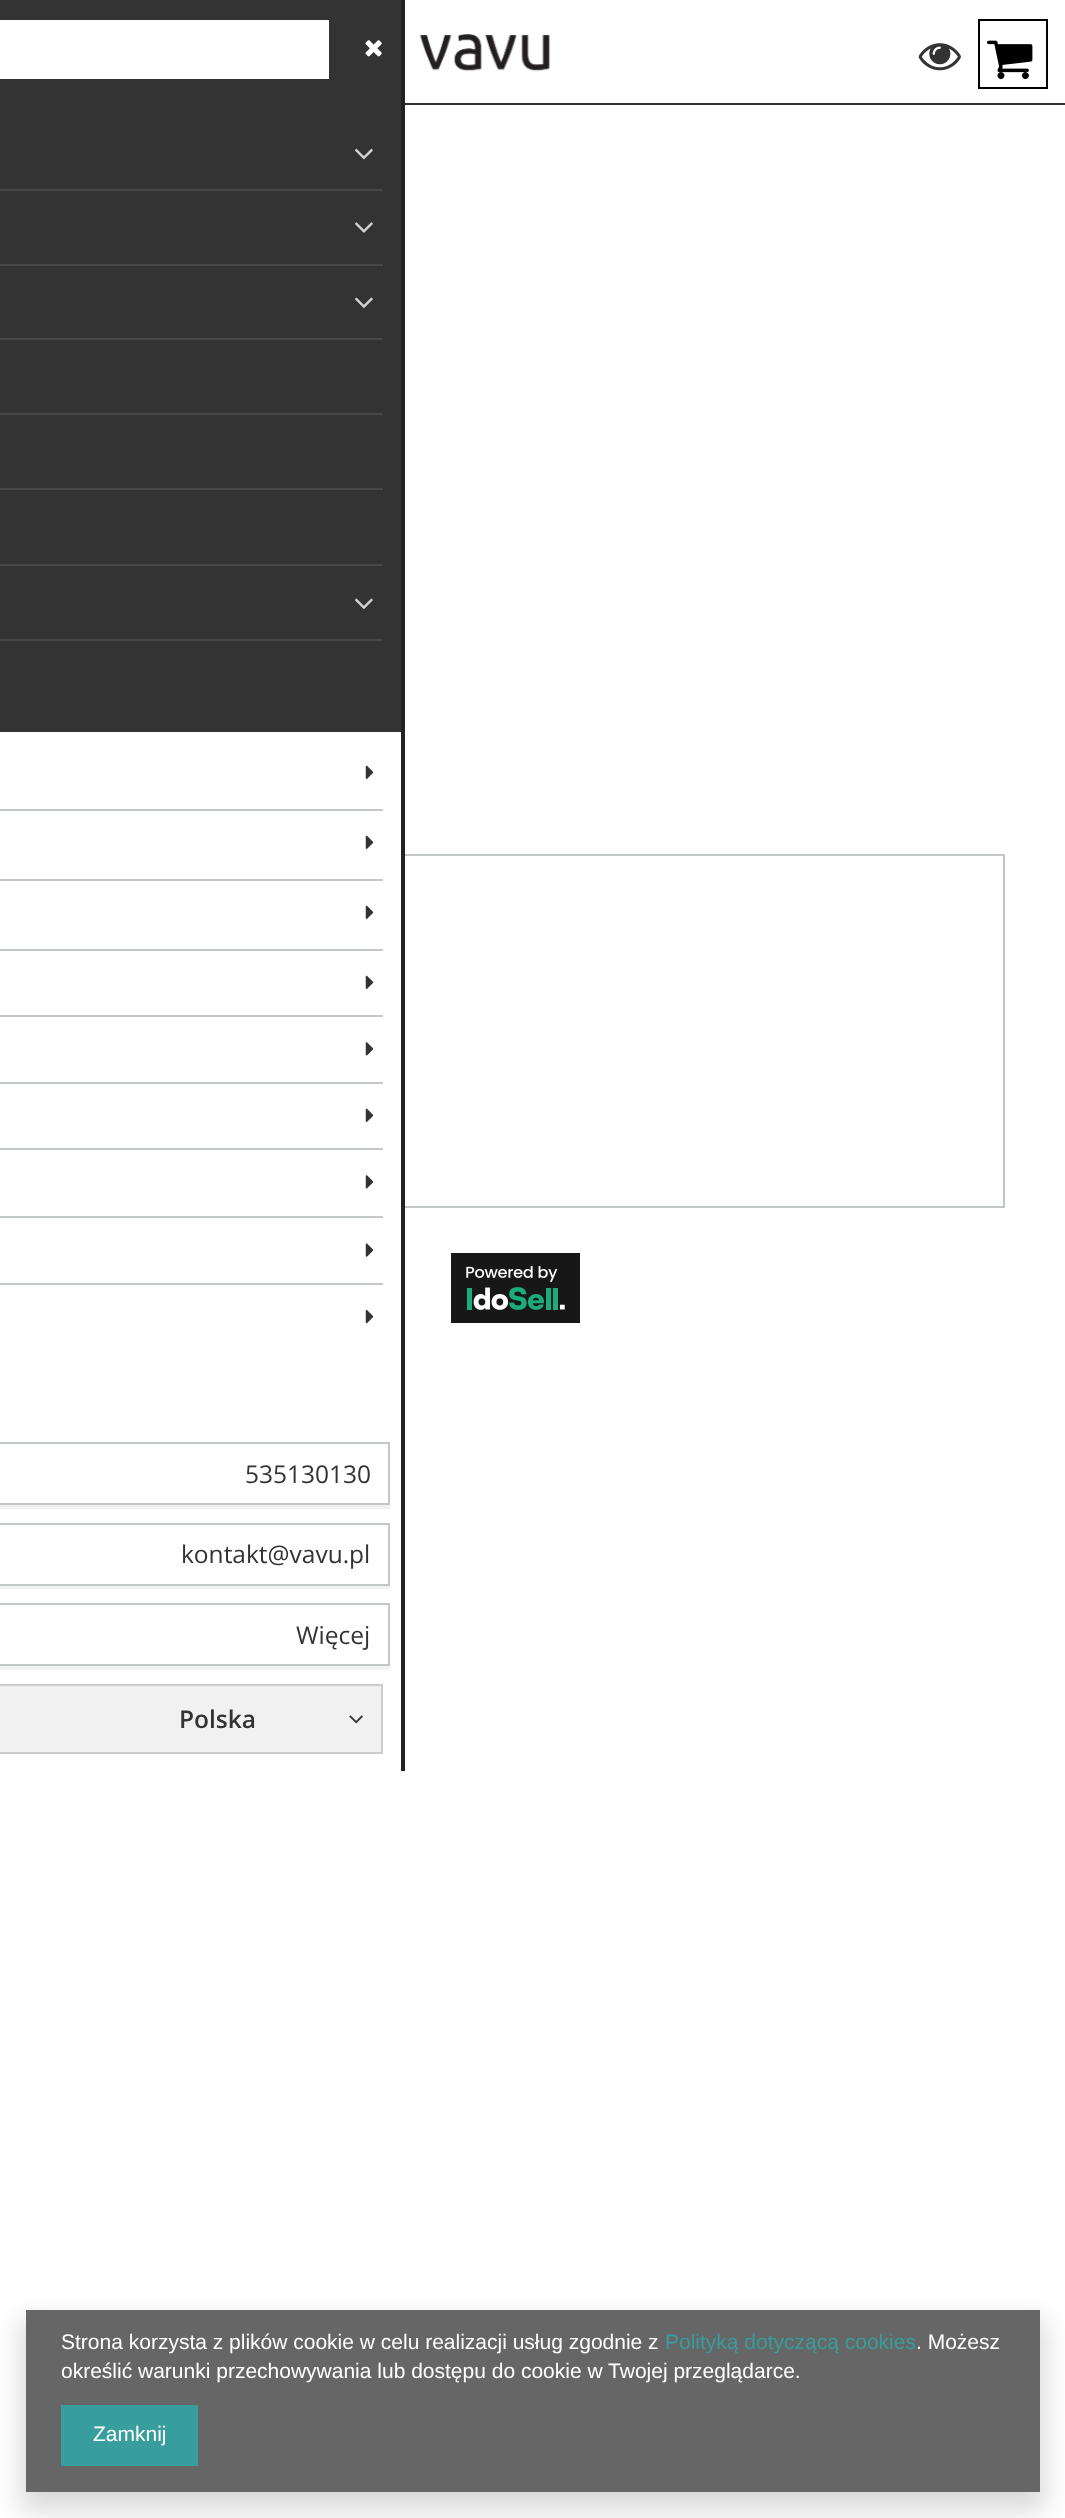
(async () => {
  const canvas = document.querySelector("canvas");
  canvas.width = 1065;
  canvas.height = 2518;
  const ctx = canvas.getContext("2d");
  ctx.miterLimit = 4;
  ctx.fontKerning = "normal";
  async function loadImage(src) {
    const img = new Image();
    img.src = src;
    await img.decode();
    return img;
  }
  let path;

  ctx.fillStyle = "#ffffff";
  ctx.fillRect(0, 0, 1065, 2518);
  ctx.fillStyle = "#333333";
  ctx.fillRect(405, 103, 660, 2);
  ctx.drawImage(await loadImage("img/1.png"), 419, 34, 131, 38);
  ctx.drawImage(await loadImage("img/2.png"), 918, 43, 43, 28);
  ctx.strokeStyle = "#000000";
  ctx.lineWidth = 2;
  ctx.strokeRect(979, 20, 68, 68);
  ctx.drawImage(await loadImage("img/3.png"), 987, 40, 46, 40);
  ctx.strokeStyle = "#c3c7c8";
  ctx.strokeRect(27, 855, 977, 352);
  ctx.drawImage(await loadImage("img/4.png"), 451, 1253, 129, 70);
  for (const [x, y, w, h, color] of [
    [26, 854, 375, 354, "#ffffff"],
    [401, 0, 4, 1771, "#222222"],
    [0, 0, 401, 732, "#333333"],
    [0, 20, 329, 59, "#ffffff"],
  ]) {
    ctx.fillStyle = color;
    ctx.fillRect(x, y, w, h);
  }
  ctx.drawImage(await loadImage("img/5.png"), 365, 40, 17, 17);
  ctx.fillStyle = "#474747";
  ctx.fillRect(0, 189, 383, 2);
  ctx.drawImage(await loadImage("img/6.png"), 355, 148, 18, 12);
  ctx.fillRect(0, 264, 383, 2);
  ctx.drawImage(await loadImage("img/7.png"), 355, 222, 18, 11);
  ctx.fillRect(0, 338, 383, 2);
  ctx.drawImage(await loadImage("img/8.png"), 355, 297, 18, 11);
  for (const [x, y, w, h, color] of [
    [0, 413, 383, 2, "#474747"],
    [0, 488, 383, 2, "#474747"],
    [0, 564, 383, 2, "#474747"],
    [0, 639, 383, 2, "#474747"],
  ]) {
    ctx.fillStyle = color;
    ctx.fillRect(x, y, w, h);
  }
  ctx.drawImage(await loadImage("img/8.png"), 355, 598, 18, 11);
  ctx.fillStyle = "#c4c7c8";
  ctx.fillRect(0, 809, 383, 2);
  ctx.drawImage(await loadImage("img/9.png"), 365, 765, 9, 14);
  ctx.fillRect(0, 879, 383, 2);
  ctx.drawImage(await loadImage("img/9.png"), 365, 835, 9, 14);
  ctx.fillRect(0, 949, 383, 2);
  ctx.drawImage(await loadImage("img/9.png"), 365, 905, 9, 14);
  ctx.fillRect(0, 1015, 383, 2);
  ctx.drawImage(await loadImage("img/9.png"), 365, 975, 9, 14);
  ctx.fillRect(0, 1082, 383, 2);
  ctx.drawImage(await loadImage("img/10.png"), 365, 1042, 9, 14);
  ctx.fillRect(0, 1148, 383, 2);
  ctx.drawImage(await loadImage("img/9.png"), 365, 1108, 9, 14);
  ctx.fillRect(0, 1216, 383, 2);
  ctx.drawImage(await loadImage("img/10.png"), 365, 1175, 9, 14);
  ctx.fillRect(0, 1283, 383, 2);
  ctx.drawImage(await loadImage("img/11.png"), 365, 1243, 9, 14);
  ctx.drawImage(await loadImage("img/12.png"), 365, 1310, 9, 14);
  ctx.fillStyle = "#f1f1f1";
  ctx.fillRect(0, 1505, 390, 4);
  ctx.strokeStyle = "#c4c7c8";
  ctx.strokeRect(-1, 1443, 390, 61);
  ctx.fillRect(0, 1586, 390, 3);
  ctx.strokeRect(-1, 1524, 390, 61);
  ctx.fillRect(0, 1666, 390, 4);
  ctx.strokeRect(-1, 1604, 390, 61);
  ctx.beginPath();
  ctx.rect(-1, 1685, 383, 68);
  ctx.fill();
  ctx.strokeStyle = "#cccccc";
  ctx.stroke();
  ctx.drawImage(await loadImage("img/13.png"), 349, 1715, 14, 9);
  ctx.save();
  path = new Path2D("M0 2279H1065V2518H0ZM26 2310H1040V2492H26Z");
  ctx.clip(path, "evenodd");
  ctx.fillStyle = "rgba(0, 0, 0, 0.15)";
  ctx.filter = "blur(13px)";
  ctx.beginPath();
  ctx.rect(21, 2319, 1024, 192);
  ctx.fill();
  ctx.filter = "none";
  ctx.restore();
  ctx.fillStyle = "rgba(0, 0, 0, 0.6)";
  ctx.fillRect(26, 2310, 1014, 182);
  ctx.fillStyle = "#379e9d";
  ctx.fillRect(61, 2405, 137, 61);
  ctx.font = "24.5px Open Sans";
  ctx.fillStyle = "#333333";
  for (const [text, x, y] of [
    ["535130130", 245, 1483],
    ["kontakt@vavu.pl", 181, 1563],
    ["Więcej", 296, 1644],
  ]) {
    ctx.fillText(text, x, y);
  }
  ctx.font = "600 24.5px Open Sans";
  ctx.fillText("Polska", 179, 1728);
  ctx.font = "21px Liberation Sans";
  ctx.fillStyle = "#ffffff";
  ctx.fillText("Strona korzysta z plików cookie w celu realizacji usług zgodnie z", 61, 2349);
  ctx.fillStyle = "#379e9d";
  ctx.fillText("Polityką dotyczącą cookies", 665, 2349);
  ctx.fillStyle = "#ffffff";
  for (const [text, x, y] of [
    [". Możesz", 916, 2349],
    ["określić warunki przechowywania lub dostępu do cookie w Twojej przeglądarce.", 61, 2378],
    ["Zamknij", 93, 2441],
  ]) {
    ctx.fillText(text, x, y);
  }
})();
